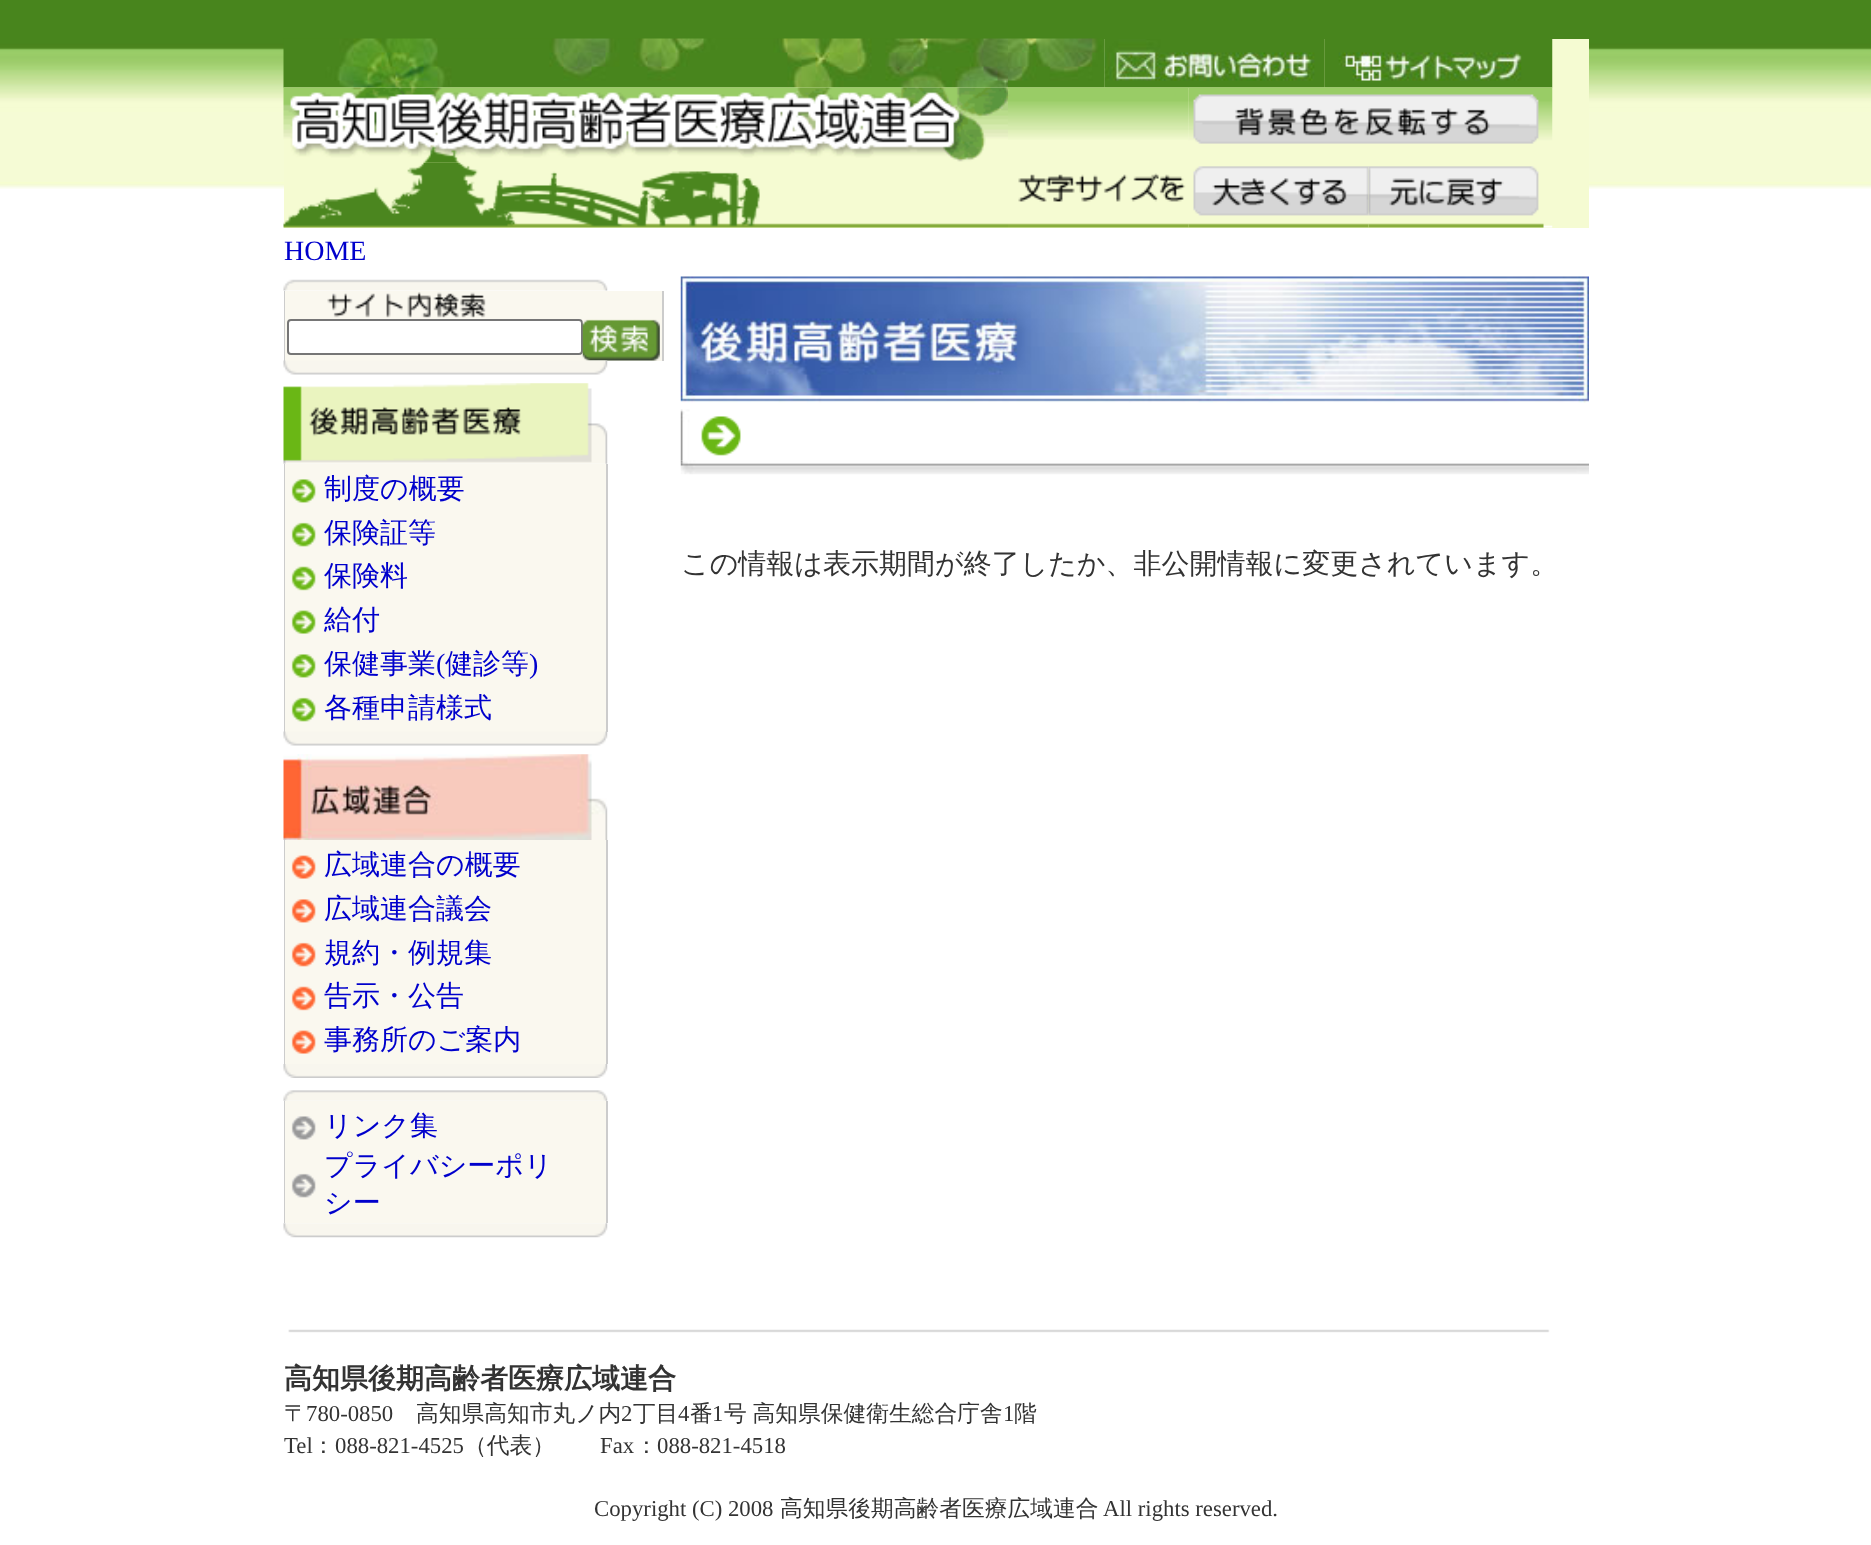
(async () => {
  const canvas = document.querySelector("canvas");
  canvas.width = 1871;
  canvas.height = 1545;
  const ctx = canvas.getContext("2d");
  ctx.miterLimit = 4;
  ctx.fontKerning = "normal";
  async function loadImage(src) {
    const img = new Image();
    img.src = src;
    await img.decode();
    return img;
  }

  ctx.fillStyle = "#ffffff";
  ctx.fillRect(0, 0, 1871, 1545);
  ctx.drawImage(await loadImage("img/1.png"), 0, 0, 1871, 189);
  ctx.fillStyle = "#f5fbd2";
  ctx.fillRect(284, 39, 1305, 189);
  ctx.drawImage(await loadImage("img/2.png"), 283, 38, 725, 50);
  ctx.drawImage(await loadImage("img/3.png"), 1008, 38, 97, 50);
  ctx.drawImage(await loadImage("img/4.png"), 1104, 39, 221, 49);
  ctx.drawImage(await loadImage("img/5.png"), 1324, 39, 229, 49);
  ctx.drawImage(await loadImage("img/6.png"), 283, 87, 725, 76);
  ctx.drawImage(await loadImage("img/7.png"), 1008, 87, 181, 53);
  ctx.drawImage(await loadImage("img/8.png"), 1188, 87, 365, 57);
  ctx.drawImage(await loadImage("img/9.png"), 283, 162, 725, 66);
  ctx.drawImage(await loadImage("img/10.png"), 1008, 173, 181, 55);
  ctx.drawImage(await loadImage("img/11.png"), 1188, 166, 181, 62);
  ctx.drawImage(await loadImage("img/12.png"), 1368, 166, 185, 62);
  ctx.drawImage(await loadImage("img/13.png"), 283, 279, 325, 12);
  ctx.fillStyle = "#cccccc";
  ctx.fillRect(284, 291, 1, 70);
  ctx.fillStyle = "#faf8ef";
  ctx.fillRect(285, 291, 377, 70);
  ctx.drawImage(await loadImage("img/14.png"), 327, 292, 159, 26);
  ctx.fillStyle = "#ffffff";
  ctx.beginPath();
  ctx.roundRect(288, 320, 294, 34, 3);
  ctx.fill();
  ctx.strokeStyle = "#767676";
  ctx.lineWidth = 2;
  ctx.stroke();
  ctx.drawImage(await loadImage("img/15.png"), 582, 319, 78, 42);
  ctx.fillStyle = "#cccccc";
  ctx.fillRect(662, 291, 2, 70);
  ctx.drawImage(await loadImage("img/16.png"), 283, 360, 325, 15);
  ctx.drawImage(await loadImage("img/17.png"), 283, 383, 325, 81);
  ctx.fillRect(284, 464, 1, 268);
  ctx.fillStyle = "#faf8ef";
  ctx.fillRect(285, 464, 321, 268);
  ctx.drawImage(await loadImage("img/18.png"), 291, 479, 25, 24);
  ctx.drawImage(await loadImage("img/19.png"), 291, 522, 25, 25);
  ctx.drawImage(await loadImage("img/20.png"), 291, 566, 25, 25);
  ctx.drawImage(await loadImage("img/21.png"), 291, 610, 25, 24);
  ctx.drawImage(await loadImage("img/18.png"), 291, 654, 25, 24);
  ctx.drawImage(await loadImage("img/19.png"), 291, 697, 25, 25);
  ctx.fillStyle = "#cccccc";
  ctx.fillRect(606, 464, 2, 268);
  ctx.drawImage(await loadImage("img/22.png"), 283, 731, 325, 15);
  ctx.drawImage(await loadImage("img/23.png"), 283, 754, 325, 86);
  ctx.fillRect(284, 840, 1, 224);
  ctx.fillStyle = "#faf8ef";
  ctx.fillRect(285, 840, 321, 224);
  ctx.drawImage(await loadImage("img/24.png"), 291, 855, 25, 24);
  ctx.drawImage(await loadImage("img/25.png"), 291, 899, 25, 24);
  ctx.drawImage(await loadImage("img/26.png"), 291, 942, 25, 25);
  ctx.drawImage(await loadImage("img/27.png"), 291, 986, 25, 25);
  ctx.drawImage(await loadImage("img/24.png"), 291, 1030, 25, 24);
  ctx.fillStyle = "#cccccc";
  ctx.fillRect(606, 840, 2, 224);
  ctx.drawImage(await loadImage("img/28.png"), 283, 1064, 325, 14);
  ctx.drawImage(await loadImage("img/29.png"), 283, 1090, 325, 11);
  ctx.fillRect(284, 1101, 1, 122);
  ctx.fillStyle = "#faf8ef";
  ctx.fillRect(285, 1101, 321, 122);
  ctx.drawImage(await loadImage("img/30.png"), 291, 1116, 25, 24);
  ctx.drawImage(await loadImage("img/31.png"), 291, 1173, 25, 25);
  ctx.fillStyle = "#cccccc";
  ctx.fillRect(606, 1101, 2, 122);
  ctx.drawImage(await loadImage("img/32.png"), 283, 1223, 325, 15);
  ctx.drawImage(await loadImage("img/33.png"), 680, 276, 909, 127);
  ctx.drawImage(await loadImage("img/34.png"), 680, 409, 10, 52);
  ctx.drawImage(await loadImage("img/35.png"), 701, 416, 40, 40);
  ctx.drawImage(await loadImage("img/36.png"), 680, 460, 909, 15);
  ctx.drawImage(await loadImage("img/37.png"), 288, 1329, 1262, 4);
  ctx.font = "28px Liberation Serif";
  ctx.fillStyle = "#0000cc";
  ctx.fillText("HOME", 284, 260);
  ctx.font = "500 28px WenQuanYi Zen Hei";
  for (const [text, x, y] of [
    ["制度の概要", 324, 498],
    ["保険証等", 324, 542],
    ["保険料", 324, 585],
    ["給付", 324, 629],
    ["保健事業", 324, 673],
  ]) {
    ctx.fillText(text, x, y);
  }
  ctx.font = "28px Liberation Serif";
  ctx.fillText("(", 436, 673);
  ctx.font = "500 28px WenQuanYi Zen Hei";
  ctx.fillText("健診等", 445, 673);
  ctx.font = "28px Liberation Serif";
  ctx.fillText(")", 529, 673);
  ctx.font = "500 28px WenQuanYi Zen Hei";
  for (const [text, x, y] of [
    ["各種申請様式", 324, 717],
    ["広域連合の概要", 324, 874],
    ["広域連合議会", 324, 918],
    ["規約・例規集", 324, 962],
    ["告示・公告", 324, 1005],
    ["事務所のご案内", 324, 1049],
    ["リンク集", 324, 1135],
    ["プライバシーポリ", 324, 1175],
    ["シー", 324, 1212],
  ]) {
    ctx.fillText(text, x, y);
  }
  ctx.fillStyle = "#333333";
  ctx.fillText("この情報は表示期間が終了したか、非公開情報に変更されています。", 681, 573);
  ctx.font = "bold 28px WenQuanYi Zen Hei";
  ctx.fillText("高知県後期高齢者医療広域連合", 284, 1388);
  ctx.font = "500 22.75px WenQuanYi Zen Hei";
  ctx.fillText("〒", 284, 1421);
  ctx.font = "22.75px Liberation Serif";
  ctx.fillText("780-0850", 306, 1421);
  ctx.font = "500 22.75px WenQuanYi Zen Hei";
  ctx.fillText("高知県高知市丸ノ内", 416, 1421);
  ctx.font = "22.75px Liberation Serif";
  ctx.fillText("2", 621, 1421);
  ctx.font = "500 22.75px WenQuanYi Zen Hei";
  ctx.fillText("丁目", 633, 1421);
  ctx.font = "22.75px Liberation Serif";
  ctx.fillText("4", 678, 1421);
  ctx.font = "500 22.75px WenQuanYi Zen Hei";
  ctx.fillText("番", 690, 1421);
  ctx.font = "22.75px Liberation Serif";
  ctx.fillText("1", 712, 1421);
  ctx.wordSpacing = "-1px";
  ctx.font = "500 22.75px WenQuanYi Zen Hei";
  ctx.fillText("号 高知県保健衛生総合庁舎", 724, 1421);
  ctx.wordSpacing = "0px";
  ctx.font = "22.75px Liberation Serif";
  ctx.fillText("1", 1003, 1421);
  ctx.font = "500 22.75px WenQuanYi Zen Hei";
  ctx.fillText("階", 1014, 1421);
  ctx.font = "22.75px Liberation Serif";
  ctx.fillText("Tel", 284, 1453);
  ctx.font = "500 22.75px WenQuanYi Zen Hei";
  ctx.fillText("：", 312, 1453);
  ctx.font = "22.75px Liberation Serif";
  ctx.fillText("088-821-4525", 335, 1453);
  ctx.font = "500 22.75px WenQuanYi Zen Hei";
  ctx.fillText("（代表）", 464, 1453);
  ctx.font = "22.75px Liberation Serif";
  ctx.fillText("Fax", 600, 1453);
  ctx.font = "500 22.75px WenQuanYi Zen Hei";
  ctx.fillText("：", 635, 1453);
  ctx.font = "22.75px Liberation Serif";
  ctx.fillText("088-821-4518", 657, 1453);
  ctx.fillText("Copyright (C) 2008", 594, 1516);
  ctx.font = "500 22.75px WenQuanYi Zen Hei";
  ctx.fillText("高知県後期高齢者医療広域連合", 780, 1516);
  ctx.font = "22.75px Liberation Serif";
  ctx.fillText("All rights reserved.", 1103, 1516);
})();
